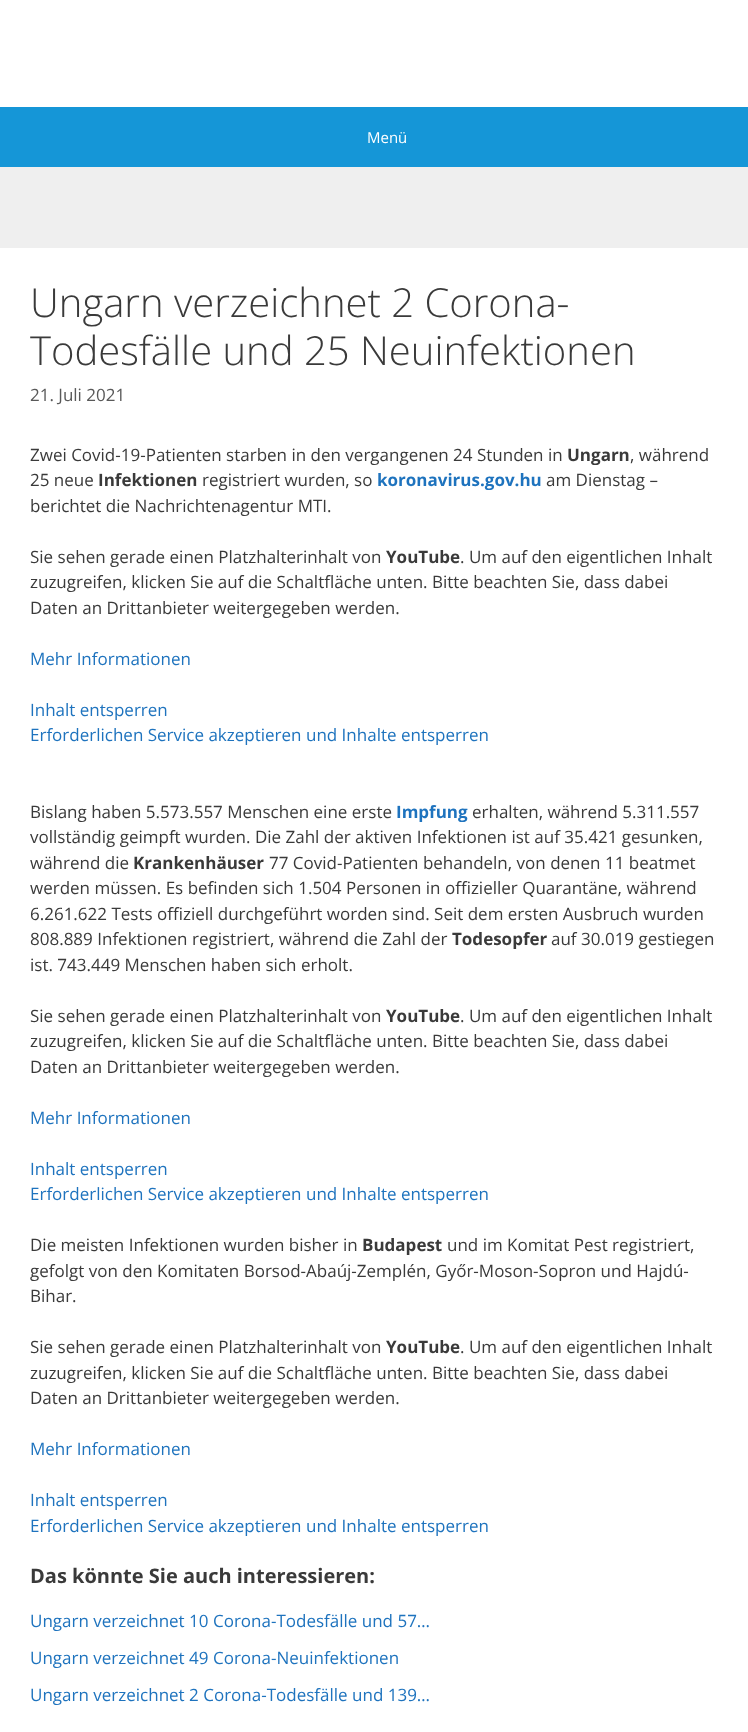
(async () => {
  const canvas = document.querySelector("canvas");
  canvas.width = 748;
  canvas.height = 1732;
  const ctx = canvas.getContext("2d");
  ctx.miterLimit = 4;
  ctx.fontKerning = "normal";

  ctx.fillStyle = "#efefef";
  ctx.fillRect(0, 0, 748, 1732);
  for (const [x, y, w, h, color] of [
    [0, 0, 748, 107, "#ffffff"],
    [0, 107, 748, 60, "#1596d7"],
    [0, 248, 748, 1484, "#ffffff"],
  ]) {
    ctx.fillStyle = color;
    ctx.fillRect(x, y, w, h);
  }
  ctx.font = "15px Open Sans";
  ctx.fillText("Menü", 367, 143);
  ctx.font = "300 40px Open Sans";
  ctx.fillStyle = "#3a3a3a";
  ctx.fillText("Ungarn verzeichnet 2 Corona-", 30, 317);
  ctx.fillText("Todesfälle und 25 Neuinfektionen", 30, 365);
  ctx.font = "17px Open Sans";
  ctx.fillStyle = "#595959";
  ctx.fillText("21. Juli 2021", 30, 401);
  ctx.fillStyle = "#3a3a3a";
  ctx.fillText("Zwei Covid-19-Patienten starben in den vergangenen 24 Stunden in", 30, 461);
  ctx.font = "bold 17px Open Sans";
  ctx.fillText("Ungarn", 567, 461);
  ctx.font = "17px Open Sans";
  ctx.fillText(", während", 630, 461);
  ctx.fillText("25 neue", 30, 486);
  ctx.font = "bold 17px Open Sans";
  ctx.fillText("Infektionen", 98, 486);
  ctx.font = "17px Open Sans";
  ctx.fillText("registriert wurden, so", 202, 486);
  ctx.font = "bold 17px Open Sans";
  ctx.fillStyle = "#1e73be";
  ctx.fillText("koronavirus.gov.hu", 377, 486);
  ctx.font = "17px Open Sans";
  ctx.fillStyle = "#3a3a3a";
  for (const [text, x, y] of [
    ["am Dienstag –", 546, 486],
    ["berichtet die Nachrichtenagentur MTI.", 30, 512],
    ["Sie sehen gerade einen Platzhalterinhalt von", 30, 563],
  ]) {
    ctx.fillText(text, x, y);
  }
  ctx.font = "bold 17px Open Sans";
  ctx.fillText("YouTube", 386, 563);
  ctx.font = "17px Open Sans";
  for (const [text, x, y] of [
    [". Um auf den eigentlichen Inhalt", 460, 563],
    ["zuzugreifen, klicken Sie auf die Schaltfläche unten. Bitte beachten Sie, dass dabei", 30, 588],
    ["Daten an Drittanbieter weitergegeben werden.", 30, 614],
  ]) {
    ctx.fillText(text, x, y);
  }
  ctx.fillStyle = "#1e73be";
  for (const [text, x, y] of [
    ["Mehr Informationen", 30, 665],
    ["Inhalt entsperren", 30, 716],
    ["Erforderlichen Service akzeptieren und Inhalte entsperren", 30, 741],
  ]) {
    ctx.fillText(text, x, y);
  }
  ctx.fillStyle = "#3a3a3a";
  ctx.fillText("Bislang haben 5.573.557 Menschen eine erste", 30, 818);
  ctx.font = "bold 17px Open Sans";
  ctx.fillStyle = "#1e73be";
  ctx.fillText("Impfung", 396, 818);
  ctx.font = "17px Open Sans";
  ctx.fillStyle = "#3a3a3a";
  for (const [text, x, y] of [
    ["erhalten, während 5.311.557", 472, 818],
    ["vollständig geimpft wurden. Die Zahl der aktiven Infektionen ist auf 35.421 gesunken,", 30, 843],
    ["während die", 30, 869],
  ]) {
    ctx.fillText(text, x, y);
  }
  ctx.font = "bold 17px Open Sans";
  ctx.fillText("Krankenhäuser", 133, 869);
  ctx.font = "17px Open Sans";
  for (const [text, x, y] of [
    ["77 Covid-Patienten behandeln, von denen 11 beatmet", 269, 869],
    ["werden müssen. Es befinden sich 1.504 Personen in offizieller Quarantäne, während", 30, 894],
    ["6.261.622 Tests offiziell durchgeführt worden sind. Seit dem ersten Ausbruch wurden", 30, 920],
    ["808.889 Infektionen registriert, während die Zahl der", 30, 945],
  ]) {
    ctx.fillText(text, x, y);
  }
  ctx.font = "bold 17px Open Sans";
  ctx.fillText("Todesopfer", 452, 945);
  ctx.font = "17px Open Sans";
  for (const [text, x, y] of [
    ["auf 30.019 gestiegen", 551, 945],
    ["ist. 743.449 Menschen haben sich erholt.", 30, 971],
    ["Sie sehen gerade einen Platzhalterinhalt von", 30, 1022],
  ]) {
    ctx.fillText(text, x, y);
  }
  ctx.font = "bold 17px Open Sans";
  ctx.fillText("YouTube", 386, 1022);
  ctx.font = "17px Open Sans";
  for (const [text, x, y] of [
    [". Um auf den eigentlichen Inhalt", 460, 1022],
    ["zuzugreifen, klicken Sie auf die Schaltfläche unten. Bitte beachten Sie, dass dabei", 30, 1047],
    ["Daten an Drittanbieter weitergegeben werden.", 30, 1073],
  ]) {
    ctx.fillText(text, x, y);
  }
  ctx.fillStyle = "#1e73be";
  for (const [text, x, y] of [
    ["Mehr Informationen", 30, 1124],
    ["Inhalt entsperren", 30, 1175],
    ["Erforderlichen Service akzeptieren und Inhalte entsperren", 30, 1200],
  ]) {
    ctx.fillText(text, x, y);
  }
  ctx.fillStyle = "#3a3a3a";
  ctx.fillText("Die meisten Infektionen wurden bisher in", 30, 1251);
  ctx.font = "bold 17px Open Sans";
  ctx.fillText("Budapest", 362, 1251);
  ctx.font = "17px Open Sans";
  for (const [text, x, y] of [
    ["und im Komitat Pest registriert,", 447, 1251],
    ["gefolgt von den Komitaten Borsod-Abaúj-Zemplén, Győr-Moson-Sopron und Hajdú-", 30, 1277],
    ["Bihar.", 30, 1302],
    ["Sie sehen gerade einen Platzhalterinhalt von", 30, 1353],
  ]) {
    ctx.fillText(text, x, y);
  }
  ctx.font = "bold 17px Open Sans";
  ctx.fillText("YouTube", 386, 1353);
  ctx.font = "17px Open Sans";
  for (const [text, x, y] of [
    [". Um auf den eigentlichen Inhalt", 460, 1353],
    ["zuzugreifen, klicken Sie auf die Schaltfläche unten. Bitte beachten Sie, dass dabei", 30, 1379],
    ["Daten an Drittanbieter weitergegeben werden.", 30, 1404],
  ]) {
    ctx.fillText(text, x, y);
  }
  ctx.fillStyle = "#1e73be";
  for (const [text, x, y] of [
    ["Mehr Informationen", 30, 1455],
    ["Inhalt entsperren", 30, 1506],
    ["Erforderlichen Service akzeptieren und Inhalte entsperren", 30, 1532],
  ]) {
    ctx.fillText(text, x, y);
  }
  ctx.font = "bold 20px Open Sans";
  ctx.fillStyle = "#3a3a3a";
  ctx.fillText("Das könnte Sie auch interessieren:", 30, 1583);
  ctx.font = "17px Open Sans";
  ctx.fillStyle = "#1e73be";
  for (const [text, x, y] of [
    ["Ungarn verzeichnet 10 Corona-Todesfälle und 57…", 30, 1627],
    ["Ungarn verzeichnet 49 Corona-Neuinfektionen", 30, 1664],
    ["Ungarn verzeichnet 2 Corona-Todesfälle und 139…", 30, 1701],
  ]) {
    ctx.fillText(text, x, y);
  }
})();
